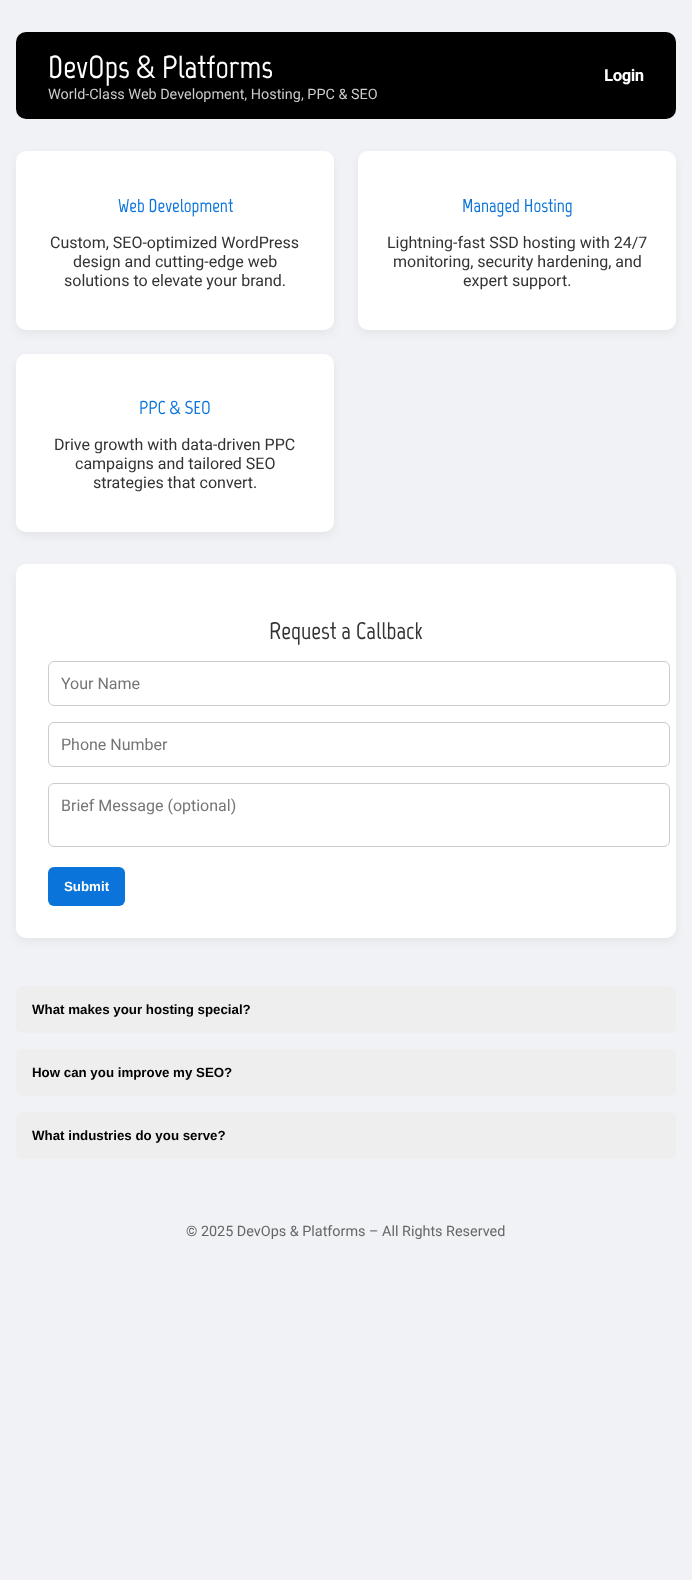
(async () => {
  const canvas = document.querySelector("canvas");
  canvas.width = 692;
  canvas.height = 1580;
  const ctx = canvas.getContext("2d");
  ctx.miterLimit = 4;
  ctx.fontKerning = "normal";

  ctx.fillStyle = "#f0f2f5";
  ctx.fillRect(0, 0, 692, 1580);
  ctx.fillStyle = "#000000";
  ctx.beginPath();
  ctx.roundRect(16, 32, 660, 87, 10);
  ctx.fill();
  ctx.fillStyle = "rgba(0, 0, 0, 0.05)";
  ctx.filter = "blur(4px)";
  ctx.beginPath();
  ctx.roundRect(16, 155, 318, 179, 10);
  ctx.fill();
  ctx.filter = "none";
  ctx.fillStyle = "#ffffff";
  ctx.beginPath();
  ctx.roundRect(16, 151, 318, 179, 10);
  ctx.fill();
  ctx.fillStyle = "rgba(0, 0, 0, 0.05)";
  ctx.filter = "blur(4px)";
  ctx.beginPath();
  ctx.roundRect(358, 155, 318, 179, 10);
  ctx.fill();
  ctx.filter = "none";
  ctx.fillStyle = "#ffffff";
  ctx.beginPath();
  ctx.roundRect(358, 151, 318, 179, 10);
  ctx.fill();
  ctx.fillStyle = "rgba(0, 0, 0, 0.05)";
  ctx.filter = "blur(4px)";
  ctx.beginPath();
  ctx.roundRect(16, 358, 318, 178, 10);
  ctx.fill();
  ctx.filter = "none";
  ctx.fillStyle = "#ffffff";
  ctx.beginPath();
  ctx.roundRect(16, 354, 318, 178, 10);
  ctx.fill();
  ctx.fillStyle = "rgba(0, 0, 0, 0.05)";
  ctx.filter = "blur(4px)";
  ctx.beginPath();
  ctx.roundRect(16, 568, 660, 374, 10);
  ctx.fill();
  ctx.filter = "none";
  ctx.fillStyle = "#ffffff";
  ctx.beginPath();
  ctx.roundRect(16, 564, 660, 374, 10);
  ctx.fill();
  ctx.beginPath();
  ctx.roundRect(48.5, 661.5, 621, 44, 5.5);
  ctx.strokeStyle = "#cccccc";
  ctx.stroke();
  ctx.beginPath();
  ctx.roundRect(48.5, 722.5, 621, 44, 5.5);
  ctx.stroke();
  ctx.beginPath();
  ctx.roundRect(48.5, 783.5, 621, 63, 5.5);
  ctx.stroke();
  ctx.fillStyle = "#0a74da";
  ctx.beginPath();
  ctx.roundRect(48, 867, 77, 39, 6);
  ctx.fill();
  ctx.fillStyle = "#eeeeee";
  ctx.beginPath();
  ctx.roundRect(16, 986, 660, 47, 6);
  ctx.fill();
  ctx.beginPath();
  ctx.roundRect(16, 1049, 660, 47, 6);
  ctx.fill();
  ctx.beginPath();
  ctx.roundRect(16, 1112, 660, 47, 6);
  ctx.fill();
  ctx.font = "bold 32px Marvel";
  ctx.fillStyle = "#ffffff";
  ctx.fillText("DevOps & Platforms", 48, 78);
  ctx.font = "14.4px Roboto";
  ctx.fillStyle = "#cccccc";
  ctx.fillText("World-Class Web Development, Hosting, PPC & SEO", 48, 99);
  ctx.font = "bold 16px Roboto";
  ctx.fillStyle = "#ffffff";
  ctx.fillText("Login", 604, 81);
  ctx.font = "bold 18.75px Marvel";
  ctx.fillStyle = "#0a74da";
  ctx.fillText("Web Development", 118, 212);
  ctx.font = "16px Roboto";
  ctx.fillStyle = "#333333";
  for (const [text, x, y] of [
    ["Custom, SEO-optimized WordPress", 50, 248],
    ["design and cutting-edge web", 73, 267],
    ["solutions to elevate your brand.", 64, 286],
  ]) {
    ctx.fillText(text, x, y);
  }
  ctx.font = "bold 18.75px Marvel";
  ctx.fillStyle = "#0a74da";
  ctx.fillText("Managed Hosting", 462, 212);
  ctx.font = "16px Roboto";
  ctx.fillStyle = "#333333";
  for (const [text, x, y] of [
    ["Lightning-fast SSD hosting with 24/7", 387, 248],
    ["monitoring, security hardening, and", 393, 267],
    ["expert support.", 463, 286],
  ]) {
    ctx.fillText(text, x, y);
  }
  ctx.font = "bold 18.75px Marvel";
  ctx.fillStyle = "#0a74da";
  ctx.fillText("PPC & SEO", 139, 414);
  ctx.font = "16px Roboto";
  ctx.fillStyle = "#333333";
  for (const [text, x, y] of [
    ["Drive growth with data-driven PPC", 54, 450],
    ["campaigns and tailored SEO", 75, 469],
    ["strategies that convert.", 93, 488],
  ]) {
    ctx.fillText(text, x, y);
  }
  ctx.font = "bold 24px Marvel";
  ctx.fillText("Request a Callback", 269, 639);
  ctx.font = "16px Roboto";
  ctx.fillStyle = "#757575";
  for (const [text, x, y] of [
    ["Your Name", 61, 689],
    ["Phone Number", 61, 750],
    ["Brief Message (optional)", 61, 811],
  ]) {
    ctx.fillText(text, x, y);
  }
  ctx.font = "bold 13.3px Liberation Sans";
  ctx.fillStyle = "#ffffff";
  ctx.fillText("Submit", 64, 891);
  ctx.fillStyle = "#000000";
  for (const [text, x, y] of [
    ["What makes your hosting special?", 32, 1014],
    ["How can you improve my SEO?", 32, 1077],
    ["What industries do you serve?", 32, 1140],
  ]) {
    ctx.fillText(text, x, y);
  }
  ctx.font = "14.4px Roboto";
  ctx.fillStyle = "#666666";
  ctx.fillText("© 2025 DevOps & Platforms – All Rights Reserved", 186, 1236);
})();
